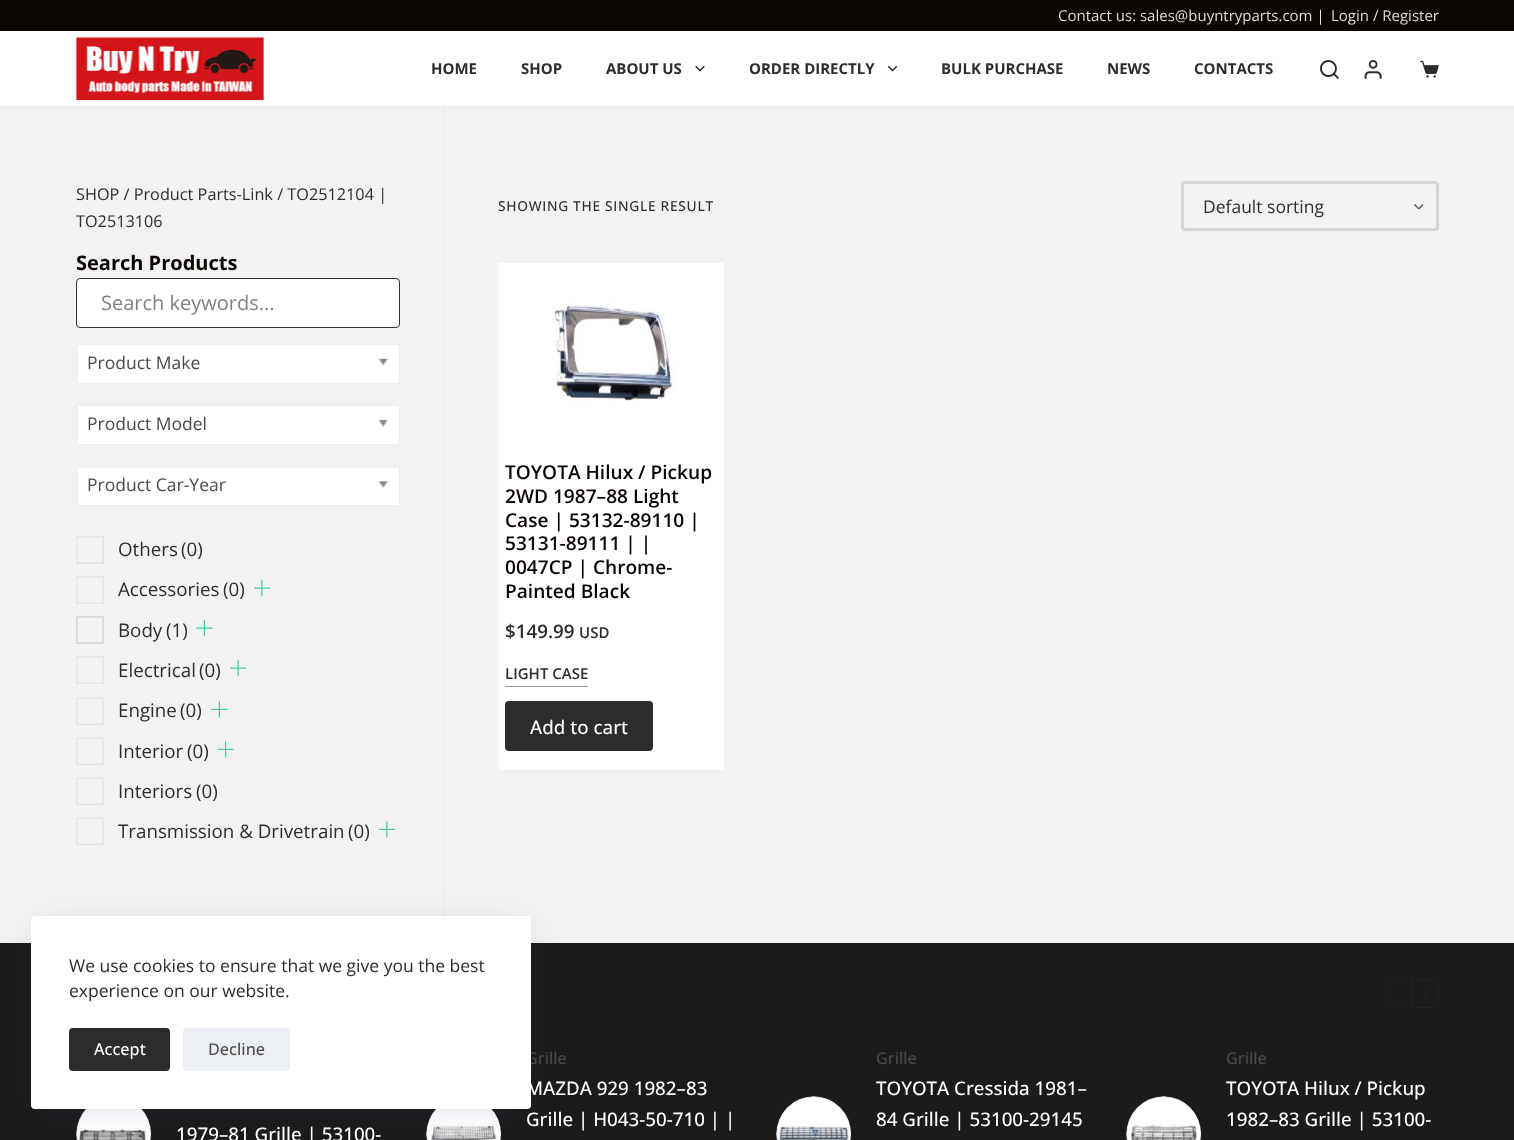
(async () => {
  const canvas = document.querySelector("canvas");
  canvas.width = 1514;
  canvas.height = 1140;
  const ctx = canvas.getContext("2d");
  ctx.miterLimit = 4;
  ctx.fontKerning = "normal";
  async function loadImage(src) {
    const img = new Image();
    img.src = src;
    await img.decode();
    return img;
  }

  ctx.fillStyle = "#f2f2f2";
  ctx.fillRect(0, 0, 1514, 1140);
  ctx.fillStyle = "#0a0500";
  ctx.fillRect(0, 0, 1514, 31);
  ctx.fillStyle = "#ffffff";
  ctx.fillRect(0, 31, 1514, 75);
  ctx.drawImage(await loadImage("img/1.png"), 75, 37, 189, 63);
  ctx.drawImage(await loadImage("img/2.png"), 695, 66, 10, 6);
  ctx.drawImage(await loadImage("img/3.png"), 888, 66, 10, 6);
  ctx.drawImage(await loadImage("img/4.png"), 1320, 60, 19, 19);
  ctx.drawImage(await loadImage("img/5.png"), 1364, 60, 18, 19);
  ctx.drawImage(await loadImage("img/6.png"), 1420, 60, 19, 18);
  ctx.beginPath();
  ctx.roundRect(76.5, 278.5, 323, 49, 3.5);
  ctx.fill();
  ctx.strokeStyle = "#333333";
  ctx.stroke();
  ctx.beginPath();
  ctx.roundRect(78, 345, 321, 38, 1);
  ctx.fill();
  ctx.beginPath();
  ctx.roundRect(76.5, 344.5, 323, 39, 2);
  ctx.strokeStyle = "#eeeeee";
  ctx.stroke();
  ctx.drawImage(await loadImage("img/7.png"), 378, 358, 11, 8);
  ctx.beginPath();
  ctx.roundRect(78, 406, 321, 38, 1);
  ctx.fill();
  ctx.beginPath();
  ctx.roundRect(76.5, 405.5, 323, 39, 2);
  ctx.stroke();
  ctx.drawImage(await loadImage("img/8.png"), 378, 419, 10, 8);
  ctx.beginPath();
  ctx.roundRect(78, 468, 321, 37, 1);
  ctx.fill();
  ctx.beginPath();
  ctx.roundRect(76.5, 466.5, 323, 39, 2);
  ctx.stroke();
  ctx.drawImage(await loadImage("img/9.png"), 378, 481, 11, 7);
  ctx.drawImage(await loadImage("img/10.png"), 76, 536, 28, 28);
  ctx.drawImage(await loadImage("img/11.png"), 76, 576, 28, 28);
  ctx.drawImage(await loadImage("img/12.png"), 254, 580, 16, 16);
  ctx.drawImage(await loadImage("img/13.png"), 76, 616, 28, 28);
  ctx.drawImage(await loadImage("img/14.png"), 196, 620, 17, 16);
  ctx.drawImage(await loadImage("img/11.png"), 76, 656, 28, 28);
  ctx.drawImage(await loadImage("img/15.png"), 230, 660, 16, 16);
  ctx.drawImage(await loadImage("img/16.png"), 76, 697, 28, 28);
  ctx.drawImage(await loadImage("img/17.png"), 211, 701, 17, 17);
  ctx.drawImage(await loadImage("img/16.png"), 76, 737, 28, 28);
  ctx.drawImage(await loadImage("img/18.png"), 218, 741, 16, 17);
  ctx.drawImage(await loadImage("img/16.png"), 76, 777, 28, 28);
  ctx.drawImage(await loadImage("img/16.png"), 76, 817, 28, 28);
  ctx.drawImage(await loadImage("img/19.png"), 379, 821, 16, 17);
  ctx.fillStyle = "#e4e8ec";
  ctx.fillRect(443, 106, 1, 810);
  ctx.drawImage(await loadImage("img/20.png"), 1414, 204, 10, 5);
  ctx.beginPath();
  ctx.roundRect(1182.5, 182.5, 255, 47, 2.5);
  ctx.strokeStyle = "#d5d5d5";
  ctx.lineWidth = 3;
  ctx.stroke();
  ctx.fillStyle = "#ffffff";
  ctx.fillRect(499, 263, 225, 507);
  ctx.drawImage(await loadImage("img/21.png"), 554, 303, 121, 102);
  ctx.fillStyle = "#969696";
  ctx.fillRect(505, 686, 83, 1);
  ctx.fillStyle = "#2c2c2c";
  ctx.beginPath();
  ctx.roundRect(505, 701, 148, 50, 4);
  ctx.fill();
  ctx.fillStyle = "#1b1b1b";
  ctx.fillRect(0, 943, 1514, 197);
  ctx.beginPath();
  ctx.roundRect(1385.5, 980.5, 27, 27, [3.5, 0, 0, 3.5]);
  ctx.strokeStyle = "#1f1f1f";
  ctx.lineWidth = 1;
  ctx.stroke();
  ctx.beginPath();
  ctx.roundRect(1411.5, 980.5, 27, 27, [0, 3.5, 3.5, 0]);
  ctx.strokeStyle = "rgba(45, 45, 45, 0.4)";
  ctx.stroke();
  ctx.drawImage(await loadImage("img/22.png"), 1423, 989, 5, 9);
  ctx.drawImage(await loadImage("img/23.png"), 426, 1109, 75, 31);
  ctx.drawImage(await loadImage("img/24.png"), 776, 1096, 75, 44);
  ctx.drawImage(await loadImage("img/25.png"), 1126, 1096, 75, 44);
  ctx.drawImage(await loadImage("img/26.png"), 76, 1109, 75, 31);
  ctx.fillStyle = "rgba(34, 56, 101, 0.15)";
  ctx.filter = "blur(19px)";
  ctx.beginPath();
  ctx.rect(38, 929, 487, 180);
  ctx.fill();
  ctx.filter = "none";
  ctx.font = "15px Open Sans";
  ctx.fillStyle = "#dedede";
  ctx.fillText("Contact us: sales@buyntryparts.com", 1058, 21);
  ctx.font = "500 15px WenQuanYi Zen Hei";
  ctx.fillStyle = "#ffffff";
  ctx.fillText("｜", 1313, 21);
  ctx.font = "15px Open Sans";
  ctx.fillStyle = "#dedede";
  ctx.fillText("Login / Register", 1331, 21);
  ctx.font = "bold 15px Open Sans";
  ctx.fillStyle = "#2d2d2d";
  for (const [text, x, y] of [
    ["HOME", 431, 74],
    ["SHOP", 521, 74],
    ["ABOUT US", 606, 74],
    ["ORDER DIRECTLY", 749, 74],
    ["BULK PURCHASE", 941, 74],
    ["NEWS", 1107, 74],
    ["CONTACTS", 1194, 74],
  ]) {
    ctx.fillText(text, x, y);
  }
  ctx.font = "16.25px Open Sans";
  ctx.fillText("SHOP / Product Parts-Link / TO2512104 |", 76, 200);
  ctx.fillText("TO2513106", 76, 227);
  ctx.font = "bold 20px Open Sans";
  ctx.fillStyle = "#0a0500";
  ctx.fillText("Search Products", 76, 270);
  ctx.font = "20px Open Sans";
  ctx.fillStyle = "#818181";
  ctx.fillText("Search keywords...", 101, 310);
  ctx.font = "17.5px Open Sans";
  ctx.fillStyle = "#494949";
  for (const [text, x, y] of [
    ["Product Make", 87, 369],
    ["Product Model", 87, 430],
    ["Product Car-Year", 87, 491],
  ]) {
    ctx.fillText(text, x, y);
  }
  ctx.font = "18.75px Open Sans";
  ctx.fillStyle = "#2d2d2d";
  for (const [text, x, y] of [
    ["Others", 118, 556],
    ["(0)", 181, 556],
    ["Accessories", 118, 596],
    ["(0)", 223, 596],
    ["Body", 118, 637],
    ["(1)", 166, 637],
    ["Electrical", 118, 677],
    ["(0)", 199, 677],
    ["Engine", 118, 717],
    ["(0)", 180, 717],
    ["Interior", 118, 758],
    ["(0)", 187, 758],
    ["Interiors", 118, 798],
    ["(0)", 196, 798],
    ["Transmission & Drivetrain", 118, 838],
    ["(0)", 348, 838],
  ]) {
    ctx.fillText(text, x, y);
  }
  ctx.letterSpacing = "0.7px";
  ctx.font = "500 13.75px Open Sans";
  ctx.fillText("SHOWING THE SINGLE RESULT", 498, 211);
  ctx.letterSpacing = "0px";
  ctx.font = "17.5px Open Sans";
  ctx.fillText("Default sorting", 1203, 213);
  ctx.font = "600 19.1px Open Sans";
  ctx.fillStyle = "#0a0500";
  for (const [text, x, y] of [
    ["TOYOTA Hilux / Pickup", 505, 479],
    ["2WD 1987–88 Light", 505, 503],
    ["Case | 53132-89110 |", 505, 527],
    ["53131-89111 | |", 505, 550],
    ["0047CP | Chrome-", 505, 574],
    ["Painted Black", 505, 598],
  ]) {
    ctx.fillText(text, x, y);
  }
  ctx.font = "600 18.75px Open Sans";
  ctx.fillStyle = "#2d2d2d";
  ctx.fillText("$149.99", 505, 638);
  ctx.font = "600 15px Open Sans";
  ctx.fillText("USD", 579, 638);
  ctx.fillText("LIGHT CASE", 505, 679);
  ctx.font = "500 18.75px Open Sans";
  ctx.fillStyle = "#ffffff";
  ctx.fillText("Add to cart", 530, 734);
  ctx.font = "500 16.25px Open Sans";
  ctx.fillStyle = "#494949";
  ctx.fillText("Grille", 526, 1064);
  ctx.font = "500 18.75px Open Sans";
  ctx.fillStyle = "#ffffff";
  ctx.fillText("MAZDA 929 1982–83", 526, 1095);
  ctx.fillText("Grille | H043-50-710 | |", 526, 1126);
  ctx.font = "500 16.25px Open Sans";
  ctx.fillStyle = "#494949";
  ctx.fillText("Grille", 876, 1064);
  ctx.font = "500 18.75px Open Sans";
  ctx.fillStyle = "#ffffff";
  ctx.fillText("TOYOTA Cressida 1981–", 876, 1095);
  ctx.fillText("84 Grille | 53100-29145", 876, 1126);
  ctx.font = "500 16.25px Open Sans";
  ctx.fillStyle = "#494949";
  ctx.fillText("Grille", 1226, 1064);
  ctx.font = "500 18.75px Open Sans";
  ctx.fillStyle = "#ffffff";
  for (const [text, x, y] of [
    ["TOYOTA Hilux / Pickup", 1226, 1095],
    ["1982–83 Grille | 53100-", 1226, 1126],
    ["1979–81 Grille | 53100-", 176, 1141],
  ]) {
    ctx.fillText(text, x, y);
  }
  ctx.beginPath();
  ctx.roundRect(31, 916, 500, 193, 4);
  ctx.fill();
  ctx.font = "17.5px Open Sans";
  ctx.fillStyle = "#2d2d2d";
  ctx.fillText("We use cookies to ensure that we give you the best", 69, 972);
  ctx.fillText("experience on our website.", 69, 997);
  ctx.fillStyle = "#2c2c2c";
  ctx.beginPath();
  ctx.roundRect(69, 1028, 101, 43, 4);
  ctx.fill();
  ctx.font = "500 16.25px Open Sans";
  ctx.fillStyle = "#ffffff";
  ctx.fillText("Accept", 94, 1055);
  ctx.fillStyle = "#eceff3";
  ctx.beginPath();
  ctx.roundRect(183, 1028, 107, 43, 4);
  ctx.fill();
  ctx.fillStyle = "#504e4a";
  ctx.fillText("Decline", 208, 1055);
})();
